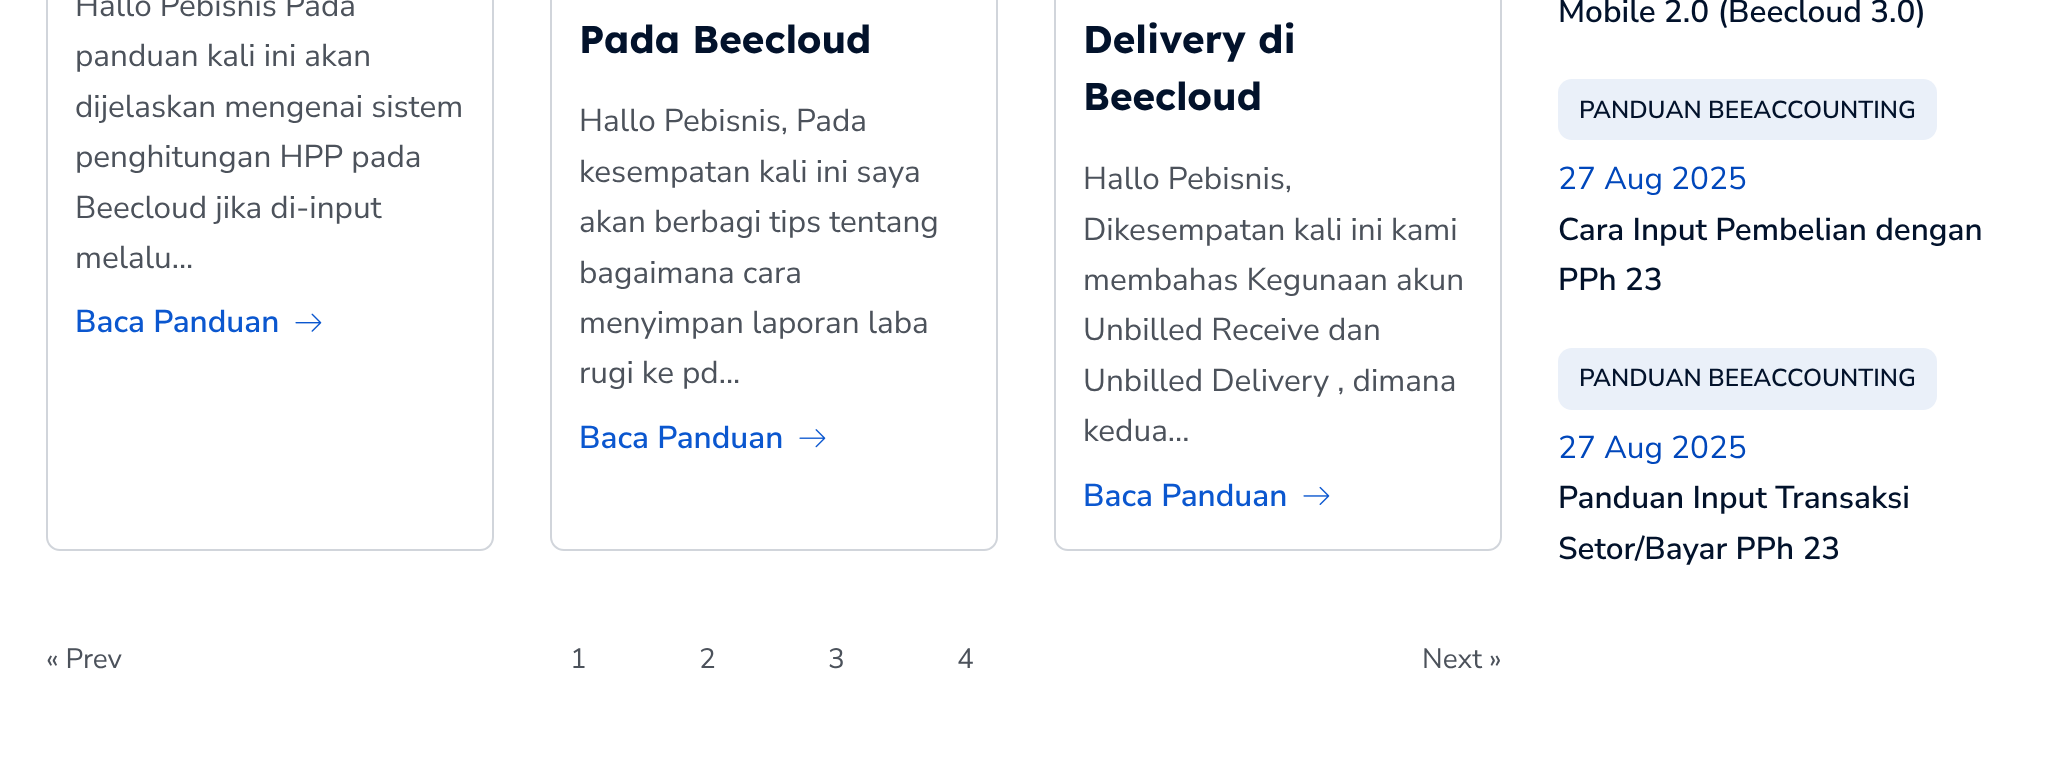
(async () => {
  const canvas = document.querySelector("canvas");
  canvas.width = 2050;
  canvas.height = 758;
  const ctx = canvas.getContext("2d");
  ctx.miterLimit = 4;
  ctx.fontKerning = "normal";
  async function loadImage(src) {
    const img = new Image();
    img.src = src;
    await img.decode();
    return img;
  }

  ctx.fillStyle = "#ffffff";
  ctx.fillRect(0, 0, 2050, 758);
  ctx.beginPath();
  ctx.roundRect(47, -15, 446, 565, 13);
  ctx.strokeStyle = "#d1d5db";
  ctx.lineWidth = 2;
  ctx.stroke();
  ctx.drawImage(await loadImage("img/1.png"), 295, 313, 27, 19);
  ctx.beginPath();
  ctx.roundRect(551, -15, 446, 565, 13);
  ctx.stroke();
  ctx.drawImage(await loadImage("img/2.png"), 799, 429, 27, 19);
  ctx.beginPath();
  ctx.roundRect(1055, -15, 446, 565, 13);
  ctx.stroke();
  ctx.drawImage(await loadImage("img/3.png"), 1303, 486, 27, 19);
  ctx.fillStyle = "#eaf0f9";
  ctx.beginPath();
  ctx.roundRect(1558, 79, 379, 61, 14);
  ctx.fill();
  ctx.beginPath();
  ctx.roundRect(1558, 348, 379, 62, 14);
  ctx.fill();
  ctx.font = "31.5px Nunito Sans";
  ctx.fillStyle = "#4c525b";
  for (const [text, x, y] of [
    ["Hallo Pebisnis Pada", 75, 16],
    ["panduan kali ini akan", 75, 66],
    ["dijelaskan mengenai sistem", 75, 117],
    ["penghitungan HPP pada", 75, 167],
    ["Beecloud jika di-input", 75, 218],
    ["melalu...", 75, 268],
  ]) {
    ctx.fillText(text, x, y);
  }
  ctx.font = "600 31.5px Nunito Sans";
  ctx.fillStyle = "#0b57cf";
  ctx.fillText("Baca Panduan", 75, 332);
  ctx.font = "bold 38.5px Lexend";
  ctx.fillStyle = "#02122b";
  ctx.fillText("Pada Beecloud", 579, 53);
  ctx.font = "31.5px Nunito Sans";
  ctx.fillStyle = "#4c525b";
  for (const [text, x, y] of [
    ["Hallo Pebisnis, Pada", 579, 131],
    ["kesempatan kali ini saya", 579, 182],
    ["akan berbagi tips tentang", 579, 232],
    ["bagaimana cara", 579, 283],
    ["menyimpan laporan laba", 579, 333],
    ["rugi ke pd...", 579, 383],
  ]) {
    ctx.fillText(text, x, y);
  }
  ctx.font = "600 31.5px Nunito Sans";
  ctx.fillStyle = "#0b57cf";
  ctx.fillText("Baca Panduan", 579, 448);
  ctx.font = "bold 38.5px Lexend";
  ctx.fillStyle = "#02122b";
  ctx.fillText("Delivery di", 1083, 53);
  ctx.fillText("Beecloud", 1083, 110);
  ctx.font = "31.5px Nunito Sans";
  ctx.fillStyle = "#4c525b";
  for (const [text, x, y] of [
    ["Hallo Pebisnis,", 1083, 189],
    ["Dikesempatan kali ini kami", 1083, 240],
    ["membahas Kegunaan akun", 1083, 290],
    ["Unbilled Receive dan", 1083, 340],
    ["Unbilled Delivery , dimana", 1083, 391],
    ["kedua...", 1083, 441],
  ]) {
    ctx.fillText(text, x, y);
  }
  ctx.font = "600 31.5px Nunito Sans";
  ctx.fillStyle = "#0b57cf";
  ctx.fillText("Baca Panduan", 1083, 506);
  ctx.font = "28px Nunito Sans";
  ctx.fillStyle = "#4c525b";
  for (const [text, x, y] of [
    ["« Prev", 46, 668],
    ["1", 570, 668],
    ["2", 699, 668],
    ["3", 828, 668],
    ["4", 957, 668],
    ["Next »", 1422, 668],
  ]) {
    ctx.fillText(text, x, y);
  }
  ctx.font = "600 31.5px Nunito Sans";
  ctx.fillStyle = "#02122b";
  ctx.fillText("Mobile 2.0 (Beecloud 3.0)", 1558, 22);
  ctx.font = "600 24.5px Nunito Sans";
  ctx.fillText("PANDUAN BEEACCOUNTING", 1579, 118);
  ctx.font = "31.5px Nunito Sans";
  ctx.fillStyle = "#0047bb";
  ctx.fillText("27 Aug 2025", 1558, 189);
  ctx.font = "600 31.5px Nunito Sans";
  ctx.fillStyle = "#02122b";
  ctx.fillText("Cara Input Pembelian dengan", 1558, 240);
  ctx.fillText("PPh 23", 1558, 290);
  ctx.font = "600 24.5px Nunito Sans";
  ctx.fillText("PANDUAN BEEACCOUNTING", 1579, 386);
  ctx.font = "31.5px Nunito Sans";
  ctx.fillStyle = "#0047bb";
  ctx.fillText("27 Aug 2025", 1558, 458);
  ctx.font = "600 31.5px Nunito Sans";
  ctx.fillStyle = "#02122b";
  ctx.fillText("Panduan Input Transaksi", 1558, 508);
  ctx.fillText("Setor/Bayar PPh 23", 1558, 559);
})();
